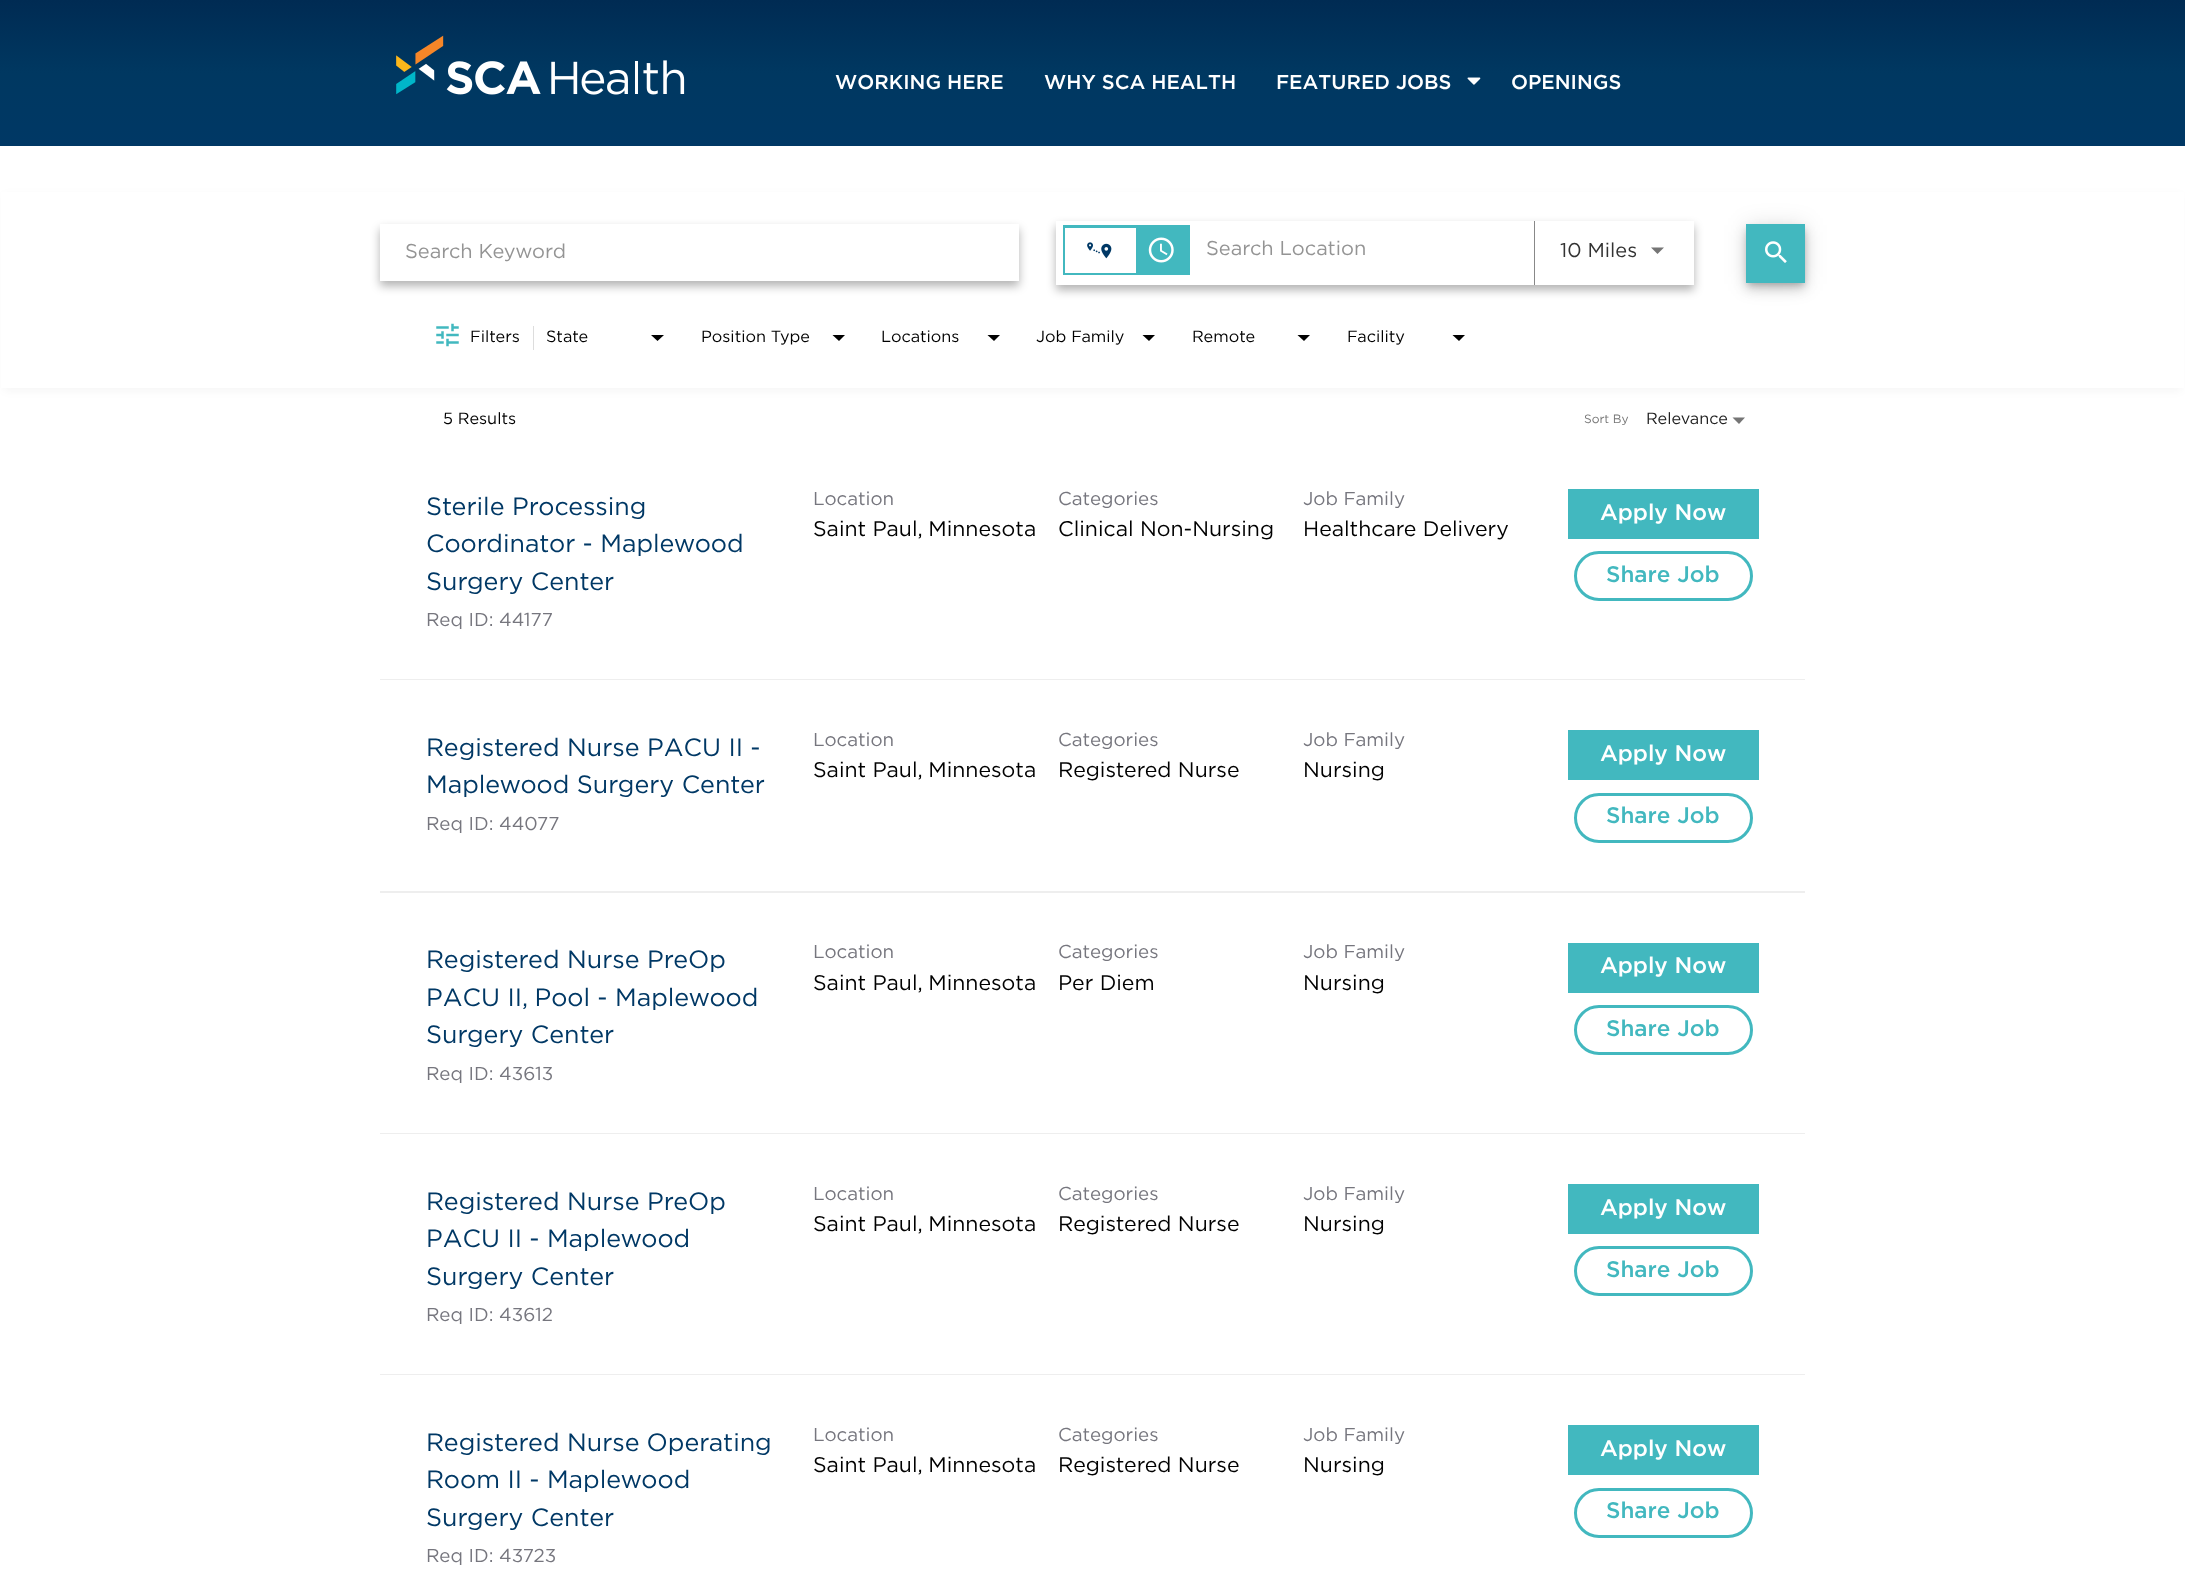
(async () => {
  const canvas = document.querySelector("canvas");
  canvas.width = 2185;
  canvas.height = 1571;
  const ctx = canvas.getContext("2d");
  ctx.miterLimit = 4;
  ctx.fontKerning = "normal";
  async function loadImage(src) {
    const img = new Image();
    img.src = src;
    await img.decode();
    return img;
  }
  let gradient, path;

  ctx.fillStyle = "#ffffff";
  ctx.fillRect(0, 0, 2185, 1571);
  gradient = ctx.createLinearGradient(1093, 0, 1093, 146);
  gradient.addColorStop(0, "#002b53");
  gradient.addColorStop(0.5, "#003861");
  gradient.addColorStop(1, "#003865");
  ctx.fillStyle = gradient;
  ctx.fillRect(0, 0, 2185, 146);
  ctx.drawImage(await loadImage("img/1.png"), 396, 35, 289, 60);
  ctx.drawImage(await loadImage("img/2.png"), 1467, 77, 14, 8);
  ctx.fillStyle = "rgba(0, 0, 0, 0.04)";
  ctx.filter = "blur(4px)";
  ctx.beginPath();
  ctx.rect(4, 195, 2177, 196);
  ctx.fill();
  ctx.filter = "none";
  ctx.fillStyle = "#ffffff";
  ctx.fillRect(1, 192, 2183, 196);
  ctx.save();
  path = new Path2D("M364 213H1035V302H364ZM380 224H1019V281H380Z");
  ctx.clip(path, "evenodd");
  ctx.fillStyle = "rgba(0, 0, 0, 0.3)";
  ctx.filter = "blur(5px)";
  ctx.beginPath();
  ctx.rect(380, 229, 639, 57);
  ctx.fill();
  ctx.filter = "none";
  ctx.restore();
  ctx.beginPath();
  ctx.roundRect(380, 224, 639, 57, 28.5);
  ctx.fill();
  ctx.save();
  path = new Path2D("M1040 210H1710V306H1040ZM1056 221H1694V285H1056Z");
  ctx.clip(path, "evenodd");
  ctx.fillStyle = "rgba(0, 0, 0, 0.3)";
  ctx.filter = "blur(5px)";
  ctx.beginPath();
  ctx.rect(1056, 226, 638, 64);
  ctx.fill();
  ctx.filter = "none";
  ctx.restore();
  ctx.beginPath();
  ctx.roundRect(1056, 221, 468, 58, 29);
  ctx.fill();
  ctx.fillStyle = "#42b8bf";
  ctx.fillRect(1063, 225, 127, 50);
  ctx.fillStyle = "#ffffff";
  ctx.fillRect(1065, 228, 71, 45);
  ctx.drawImage(await loadImage("img/3.png"), 1087, 242, 25, 17);
  ctx.drawImage(await loadImage("img/4.png"), 1148, 237, 26, 26);
  ctx.beginPath();
  ctx.roundRect(1534, 221, 160, 64, [0, 30, 30, 0]);
  ctx.fill();
  ctx.fillStyle = "#888888";
  ctx.fillRect(1534, 221, 1, 64);
  ctx.fillStyle = "#757575";
  path = new Path2D("M1651 247.5H1664L1657.5 254Z");
  ctx.fill(path);
  ctx.fillStyle = "rgba(0, 0, 0, 0.12)";
  ctx.filter = "blur(11px)";
  ctx.beginPath();
  ctx.rect(1746, 225, 59, 59);
  ctx.fill();
  ctx.filter = "none";
  ctx.fillStyle = "rgba(0, 0, 0, 0.14)";
  ctx.filter = "blur(6px)";
  ctx.beginPath();
  ctx.rect(1746, 231, 59, 59);
  ctx.fill();
  ctx.filter = "none";
  ctx.fillStyle = "rgba(0, 0, 0, 0.2)";
  ctx.filter = "blur(3px)";
  ctx.beginPath();
  ctx.rect(1748, 229, 56, 56);
  ctx.fill();
  ctx.filter = "none";
  ctx.fillStyle = "#42b8bf";
  ctx.fillRect(1746, 224, 59, 59);
  ctx.drawImage(await loadImage("img/5.png"), 1765, 241, 22, 22);
  ctx.drawImage(await loadImage("img/6.png"), 436, 323, 23, 24);
  ctx.fillStyle = "#dddddd";
  ctx.fillRect(533, 326, 1, 24);
  ctx.fillStyle = "#000000";
  path = new Path2D("M651 335H664L657.5 341Z");
  ctx.fill(path);
  path = new Path2D("M832.5 335H845L839 341Z");
  ctx.fill(path);
  path = new Path2D("M987.5 335H1000L994 341Z");
  ctx.fill(path);
  path = new Path2D("M1142.5 335H1155L1149 341Z");
  ctx.fill(path);
  path = new Path2D("M1297.5 335H1310L1304 341Z");
  ctx.fill(path);
  path = new Path2D("M1452.5 335H1465L1459 341Z");
  ctx.fill(path);
  ctx.fillStyle = "#757575";
  path = new Path2D("M1732.5 417.5H1745L1739 424Z");
  ctx.fill(path);
  ctx.fillStyle = "#42b8bf";
  ctx.fillRect(1568, 489, 191, 50);
  ctx.beginPath();
  ctx.roundRect(1575.5, 552.5, 176, 47, 23.5);
  ctx.strokeStyle = "#42b8bf";
  ctx.lineWidth = 3;
  ctx.stroke();
  ctx.fillStyle = "#eeeeee";
  ctx.fillRect(380, 679, 1425, 1);
  ctx.fillStyle = "#42b8bf";
  ctx.fillRect(1568, 730, 191, 50);
  ctx.beginPath();
  ctx.roundRect(1575.5, 794.5, 176, 47, 23.5);
  ctx.stroke();
  ctx.fillStyle = "#eeeeee";
  ctx.fillRect(380, 891, 1425, 2);
  ctx.fillStyle = "#42b8bf";
  ctx.fillRect(1568, 943, 191, 50);
  ctx.beginPath();
  ctx.roundRect(1575.5, 1006.5, 176, 47, 23.5);
  ctx.stroke();
  ctx.fillStyle = "#eeeeee";
  ctx.fillRect(380, 1133, 1425, 1);
  ctx.fillStyle = "#42b8bf";
  ctx.fillRect(1568, 1184, 191, 50);
  ctx.beginPath();
  ctx.roundRect(1575.5, 1247.5, 176, 47, 23.5);
  ctx.stroke();
  ctx.fillStyle = "#eeeeee";
  ctx.fillRect(380, 1374, 1425, 1);
  ctx.fillStyle = "#42b8bf";
  ctx.fillRect(1568, 1425, 191, 50);
  ctx.beginPath();
  ctx.roundRect(1575.5, 1489.5, 176, 47, 23.5);
  ctx.stroke();
  ctx.font = "500 20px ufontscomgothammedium";
  ctx.fillStyle = "#ffffff";
  for (const [text, x, y] of [
    ["WORKING HERE", 835, 89],
    ["WHY SCA HEALTH", 1044, 89],
    ["FEATURED JOBS", 1276, 89],
    ["OPENINGS", 1511, 89],
  ]) {
    ctx.fillText(text, x, y);
  }
  ctx.font = "20px Gotham";
  ctx.fillStyle = "#949494";
  ctx.fillText("Search Keyword", 405, 258);
  ctx.fillText("Search Location", 1206, 255);
  ctx.fillStyle = "#333333";
  ctx.fillText("10 Miles", 1560, 257);
  ctx.font = "16.25px Gotham";
  ctx.fillStyle = "#000000";
  for (const [text, x, y] of [
    ["Filters", 470, 342],
    ["State", 546, 342],
    ["Position Type", 701, 342],
    ["Locations", 881, 342],
    ["Job Family", 1036, 342],
    ["Remote", 1192, 342],
    ["Facility", 1347, 342],
    ["5 Results", 443, 424],
  ]) {
    ctx.fillText(text, x, y);
  }
  ctx.font = "12px Gotham";
  ctx.fillStyle = "#757575";
  ctx.fillText("Sort By", 1584, 423);
  ctx.font = "16.25px Gotham";
  ctx.fillStyle = "#212121";
  ctx.fillText("Relevance", 1646, 424);
  ctx.font = "25px Gotham";
  ctx.fillStyle = "#003865";
  for (const [text, x, y] of [
    ["Sterile Processing", 426, 515],
    ["Coordinator - Maplewood", 426, 552],
    ["Surgery Center", 426, 590],
  ]) {
    ctx.fillText(text, x, y);
  }
  ctx.font = "18.75px Gotham";
  ctx.fillStyle = "#76767e";
  ctx.fillText("Req ID: 44177", 426, 626);
  ctx.fillText("Location", 813, 505);
  ctx.font = "21.25px Gotham";
  ctx.fillStyle = "#000000";
  ctx.fillText("Saint Paul, Minnesota", 813, 536);
  ctx.font = "18.75px Gotham";
  ctx.fillStyle = "#76767e";
  ctx.fillText("Categories", 1058, 505);
  ctx.font = "21.25px Gotham";
  ctx.fillStyle = "#000000";
  ctx.fillText("Clinical Non-Nursing", 1058, 536);
  ctx.font = "18.75px Gotham";
  ctx.fillStyle = "#76767e";
  ctx.fillText("Job Family", 1303, 505);
  ctx.font = "21.25px Gotham";
  ctx.fillStyle = "#000000";
  ctx.fillText("Healthcare Delivery", 1303, 536);
  ctx.font = "500 22.5px ufontscomgothammedium";
  ctx.fillStyle = "#ffffff";
  ctx.fillText("Apply Now", 1600, 520);
  ctx.fillStyle = "#42b8bf";
  ctx.fillText("Share Job", 1606, 582);
  ctx.font = "25px Gotham";
  ctx.fillStyle = "#003865";
  ctx.fillText("Registered Nurse PACU II -", 426, 756);
  ctx.fillText("Maplewood Surgery Center", 426, 793);
  ctx.font = "18.75px Gotham";
  ctx.fillStyle = "#76767e";
  ctx.fillText("Req ID: 44077", 426, 830);
  ctx.fillText("Location", 813, 746);
  ctx.font = "21.25px Gotham";
  ctx.fillStyle = "#000000";
  ctx.fillText("Saint Paul, Minnesota", 813, 777);
  ctx.font = "18.75px Gotham";
  ctx.fillStyle = "#76767e";
  ctx.fillText("Categories", 1058, 746);
  ctx.font = "21.25px Gotham";
  ctx.fillStyle = "#000000";
  ctx.fillText("Registered Nurse", 1058, 777);
  ctx.font = "18.75px Gotham";
  ctx.fillStyle = "#76767e";
  ctx.fillText("Job Family", 1303, 746);
  ctx.font = "21.25px Gotham";
  ctx.fillStyle = "#000000";
  ctx.fillText("Nursing", 1303, 777);
  ctx.font = "500 22.5px ufontscomgothammedium";
  ctx.fillStyle = "#ffffff";
  ctx.fillText("Apply Now", 1600, 761);
  ctx.fillStyle = "#42b8bf";
  ctx.fillText("Share Job", 1606, 823);
  ctx.font = "25px Gotham";
  ctx.fillStyle = "#003865";
  for (const [text, x, y] of [
    ["Registered Nurse PreOp", 426, 968],
    ["PACU II, Pool - Maplewood", 426, 1006],
    ["Surgery Center", 426, 1043],
  ]) {
    ctx.fillText(text, x, y);
  }
  ctx.font = "18.75px Gotham";
  ctx.fillStyle = "#76767e";
  ctx.fillText("Req ID: 43613", 426, 1080);
  ctx.fillText("Location", 813, 958);
  ctx.font = "21.25px Gotham";
  ctx.fillStyle = "#000000";
  ctx.fillText("Saint Paul, Minnesota", 813, 990);
  ctx.font = "18.75px Gotham";
  ctx.fillStyle = "#76767e";
  ctx.fillText("Categories", 1058, 958);
  ctx.font = "21.25px Gotham";
  ctx.fillStyle = "#000000";
  ctx.fillText("Per Diem", 1058, 990);
  ctx.font = "18.75px Gotham";
  ctx.fillStyle = "#76767e";
  ctx.fillText("Job Family", 1303, 958);
  ctx.font = "21.25px Gotham";
  ctx.fillStyle = "#000000";
  ctx.fillText("Nursing", 1303, 990);
  ctx.font = "500 22.5px ufontscomgothammedium";
  ctx.fillStyle = "#ffffff";
  ctx.fillText("Apply Now", 1600, 973);
  ctx.fillStyle = "#42b8bf";
  ctx.fillText("Share Job", 1606, 1036);
  ctx.font = "25px Gotham";
  ctx.fillStyle = "#003865";
  for (const [text, x, y] of [
    ["Registered Nurse PreOp", 426, 1210],
    ["PACU II - Maplewood", 426, 1247],
    ["Surgery Center", 426, 1285],
  ]) {
    ctx.fillText(text, x, y);
  }
  ctx.font = "18.75px Gotham";
  ctx.fillStyle = "#76767e";
  ctx.fillText("Req ID: 43612", 426, 1321);
  ctx.fillText("Location", 813, 1200);
  ctx.font = "21.25px Gotham";
  ctx.fillStyle = "#000000";
  ctx.fillText("Saint Paul, Minnesota", 813, 1231);
  ctx.font = "18.75px Gotham";
  ctx.fillStyle = "#76767e";
  ctx.fillText("Categories", 1058, 1200);
  ctx.font = "21.25px Gotham";
  ctx.fillStyle = "#000000";
  ctx.fillText("Registered Nurse", 1058, 1231);
  ctx.font = "18.75px Gotham";
  ctx.fillStyle = "#76767e";
  ctx.fillText("Job Family", 1303, 1200);
  ctx.font = "21.25px Gotham";
  ctx.fillStyle = "#000000";
  ctx.fillText("Nursing", 1303, 1231);
  ctx.font = "500 22.5px ufontscomgothammedium";
  ctx.fillStyle = "#ffffff";
  ctx.fillText("Apply Now", 1600, 1215);
  ctx.fillStyle = "#42b8bf";
  ctx.fillText("Share Job", 1606, 1277);
  ctx.font = "25px Gotham";
  ctx.fillStyle = "#003865";
  for (const [text, x, y] of [
    ["Registered Nurse Operating", 426, 1451],
    ["Room II - Maplewood", 426, 1488],
    ["Surgery Center", 426, 1526],
  ]) {
    ctx.fillText(text, x, y);
  }
  ctx.font = "18.75px Gotham";
  ctx.fillStyle = "#76767e";
  ctx.fillText("Req ID: 43723", 426, 1562);
  ctx.fillText("Location", 813, 1441);
  ctx.font = "21.25px Gotham";
  ctx.fillStyle = "#000000";
  ctx.fillText("Saint Paul, Minnesota", 813, 1472);
  ctx.font = "18.75px Gotham";
  ctx.fillStyle = "#76767e";
  ctx.fillText("Categories", 1058, 1441);
  ctx.font = "21.25px Gotham";
  ctx.fillStyle = "#000000";
  ctx.fillText("Registered Nurse", 1058, 1472);
  ctx.font = "18.75px Gotham";
  ctx.fillStyle = "#76767e";
  ctx.fillText("Job Family", 1303, 1441);
  ctx.font = "21.25px Gotham";
  ctx.fillStyle = "#000000";
  ctx.fillText("Nursing", 1303, 1472);
  ctx.font = "500 22.5px ufontscomgothammedium";
  ctx.fillStyle = "#ffffff";
  ctx.fillText("Apply Now", 1600, 1456);
  ctx.fillStyle = "#42b8bf";
  ctx.fillText("Share Job", 1606, 1518);
})();
